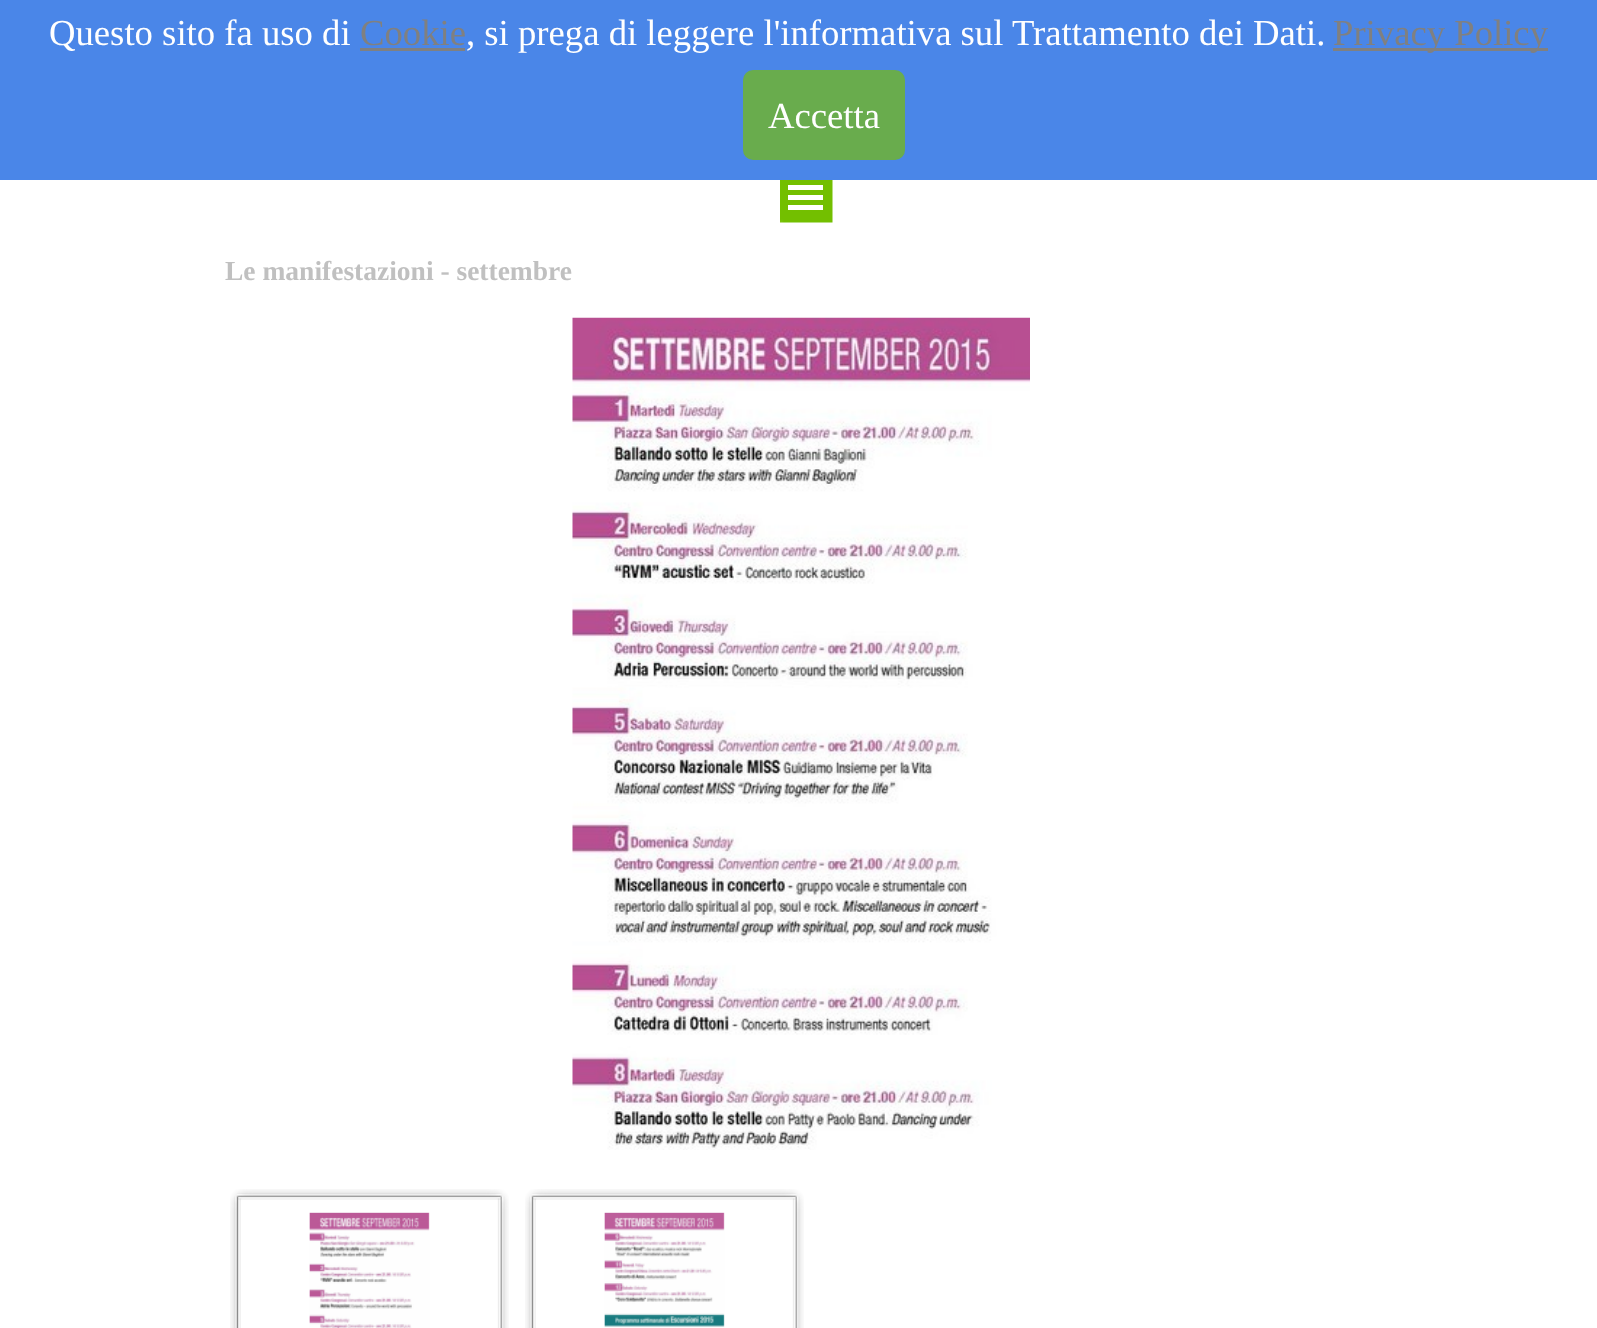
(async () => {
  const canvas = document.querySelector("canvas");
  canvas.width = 1597;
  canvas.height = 1328;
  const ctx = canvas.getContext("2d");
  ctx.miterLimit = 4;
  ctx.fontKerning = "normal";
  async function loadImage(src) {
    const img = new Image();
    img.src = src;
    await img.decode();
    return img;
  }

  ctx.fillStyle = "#ffffff";
  ctx.fillRect(0, 0, 1597, 1328);
  for (const [x, y, w, h, color] of [
    [0, 0, 1597, 180, "#4a86e8"],
    [360, 48, 105, 3, "#808080"],
    [1333, 48, 215, 3, "#808080"],
  ]) {
    ctx.fillStyle = color;
    ctx.fillRect(x, y, w, h);
  }
  ctx.fillStyle = "#69ac4d";
  ctx.beginPath();
  ctx.roundRect(743, 70, 162, 90, 10);
  ctx.fill();
  ctx.drawImage(await loadImage("img/1.png"), 780, 180, 53, 43);
  for (const [x, y, w, h, color] of [
    [788, 185, 35, 5, "#ffffff"],
    [788, 195, 35, 5, "#ffffff"],
    [788, 205, 35, 5, "#ffffff"],
  ]) {
    ctx.fillStyle = color;
    ctx.fillRect(x, y, w, h);
  }
  ctx.drawImage(await loadImage("img/2.png"), 572, 317, 458, 833);
  ctx.drawImage(await loadImage("img/3.png"), 230, 1189, 279, 139);
  ctx.drawImage(await loadImage("img/4.png"), 525, 1189, 279, 139);
  ctx.font = "36.7px Liberation Serif";
  ctx.fillText("Questo sito fa uso di", 49, 45);
  ctx.fillStyle = "#808080";
  ctx.fillText("Cookie", 360, 45);
  ctx.fillStyle = "#ffffff";
  ctx.fillText(", si prega di leggere l'informativa sul Trattamento dei Dati.", 466, 45);
  ctx.fillStyle = "#808080";
  ctx.fillText("Privacy Policy", 1333, 45);
  ctx.fillStyle = "#ffffff";
  ctx.fillText("Accetta", 768, 128);
  ctx.font = "bold 27.5px Liberation Serif";
  ctx.fillStyle = "#c0c0c0";
  ctx.fillText("Le manifestazioni - settembre", 225, 280);
})();
